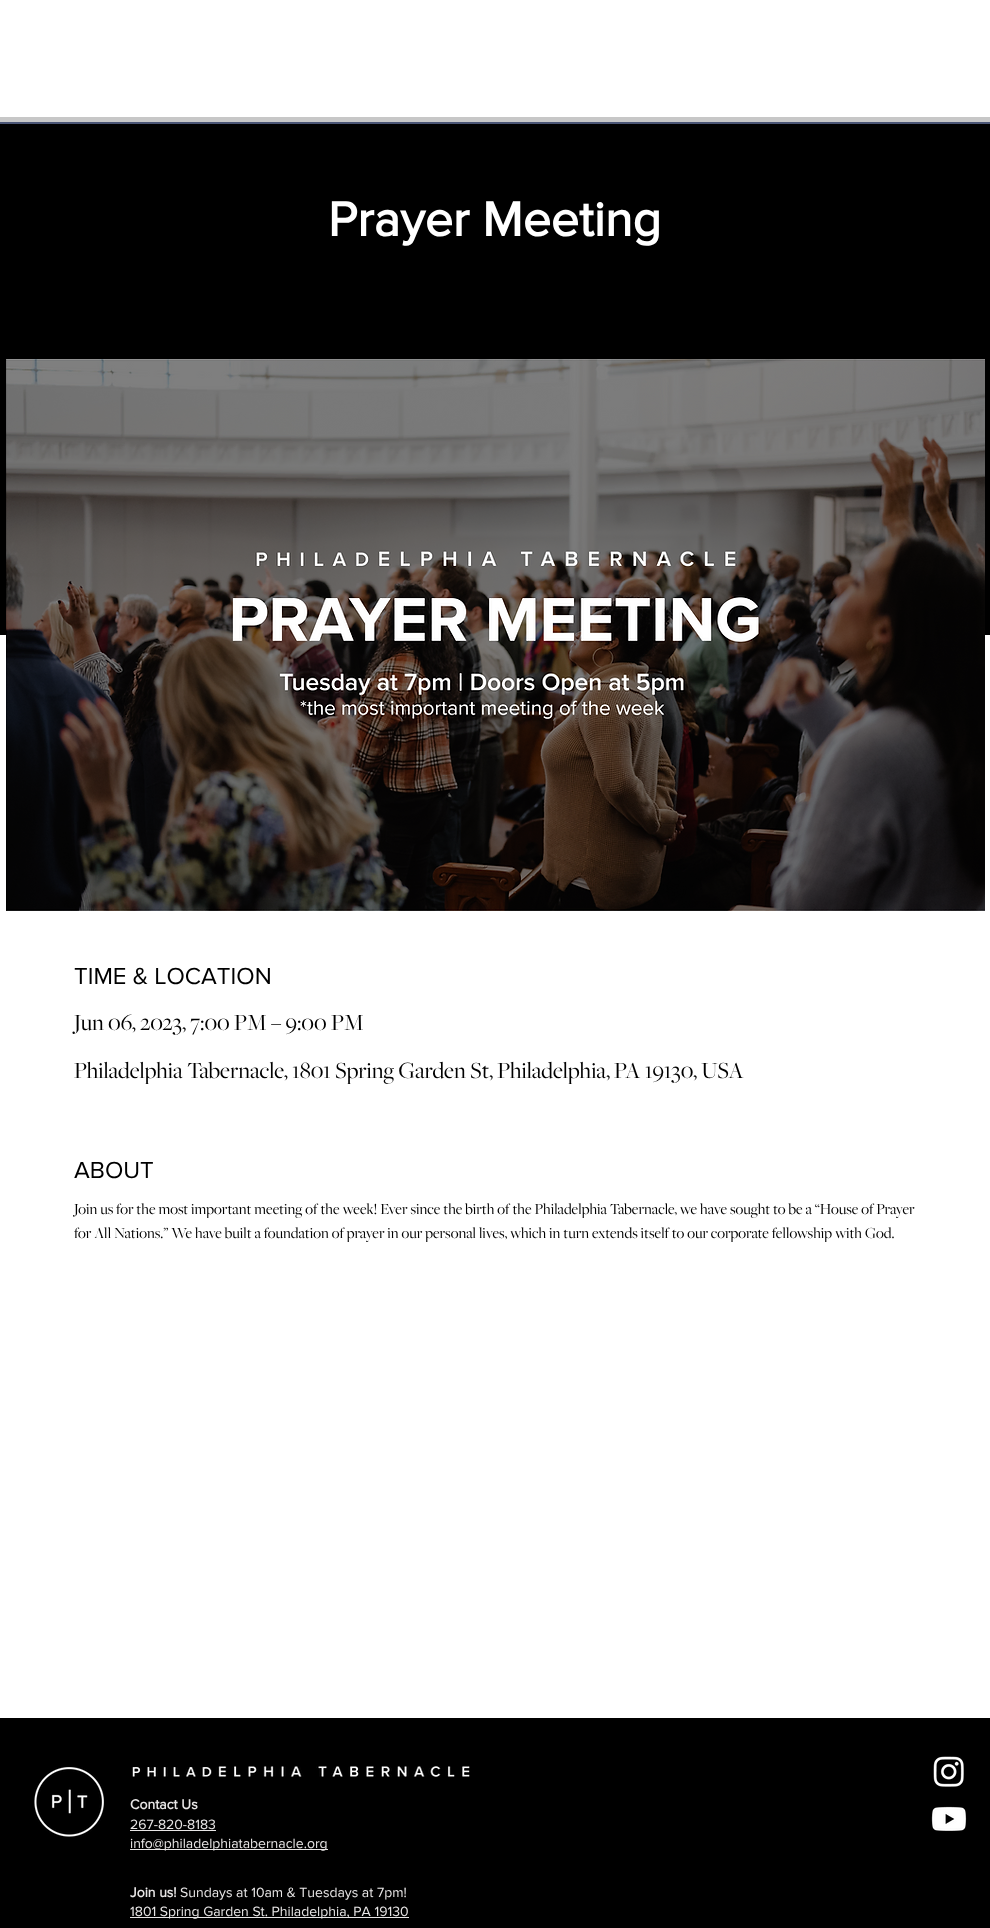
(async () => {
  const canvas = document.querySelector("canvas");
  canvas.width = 990;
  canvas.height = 1928;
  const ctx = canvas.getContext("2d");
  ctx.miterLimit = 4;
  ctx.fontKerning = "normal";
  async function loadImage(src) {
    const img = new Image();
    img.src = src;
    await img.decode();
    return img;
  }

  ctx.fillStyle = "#4b5676";
  ctx.fillRect(0, 0, 990, 1928);
  for (const [x, y, w, h, color] of [
    [0, 0, 990, 117, "#ffffff"],
    [0, 117, 990, 5, "#c7c7c7"],
    [0, 124, 990, 511, "#000000"],
    [0, 635, 990, 1083, "#ffffff"],
  ]) {
    ctx.fillStyle = color;
    ctx.fillRect(x, y, w, h);
  }
  ctx.drawImage(await loadImage("img/1.png"), 6, 359, 979, 552);
  ctx.fillStyle = "#000000";
  ctx.fillRect(0, 1718, 990, 210);
  ctx.drawImage(await loadImage("img/2.png"), 34, 1767, 70, 70);
  ctx.drawImage(await loadImage("img/3.png"), 132, 1766, 338, 11);
  ctx.drawImage(await loadImage("img/4.png"), 933, 1756, 31, 31);
  ctx.drawImage(await loadImage("img/5.png"), 931, 1806, 36, 25);
  for (const [x, y, w, h, color] of [
    [130, 1830, 86, 1, "#e8e6e6"],
    [130, 1849, 198, 1, "#e8e6e6"],
    [130, 1917, 279, 1, "#e8e6e6"],
  ]) {
    ctx.fillStyle = color;
    ctx.fillRect(x, y, w, h);
  }
  ctx.font = "bold 50px 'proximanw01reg'";
  ctx.fillStyle = "#ffffff";
  ctx.fillText("Prayer Meeting", 328, 236);
  ctx.font = "24px 'proximanw01reg'";
  ctx.fillStyle = "#000000";
  ctx.fillText("TIME & LOCATION", 74, 984);
  ctx.font = "24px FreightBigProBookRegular";
  ctx.fillText("Jun 06, 2023, 7:00 PM – 9:00 PM", 74, 1030);
  ctx.fillText("Philadelphia Tabernacle, 1801 Spring Garden St, Philadelphia, PA 19130, USA", 74, 1078);
  ctx.font = "24px 'proximanw01reg'";
  ctx.fillText("ABOUT", 74, 1178);
  ctx.font = "16px FreightBigProBookRegular";
  ctx.fillText("Join us for the most important meeting of the week! Ever since the birth of the Philadelphia Tabernacle, we have sought to be a “House of Prayer", 74, 1214);
  ctx.fillText("for All Nations.” We have built a foundation of prayer in our personal lives, which in turn extends itself to our corporate fellowship with God.", 74, 1238);
  ctx.font = "bold 14px 'proximanw01reg'";
  ctx.fillStyle = "#e8e6e6";
  ctx.fillText("Contact Us", 130, 1809);
  ctx.font = "14px 'proximanw01reg'";
  ctx.fillText("267-820-8183", 130, 1829);
  ctx.fillText("info@philadelphiatabernacle.org", 130, 1848);
  ctx.font = "bold 14px 'proximanw01reg'";
  ctx.fillText("Join us!", 130, 1897);
  ctx.font = "14px 'proximanw01reg'";
  ctx.fillText("Sundays at 10am & Tuesdays at 7pm!", 180, 1897);
  ctx.fillText("1801 Spring Garden St. Philadelphia, PA 19130", 130, 1916);
})();
